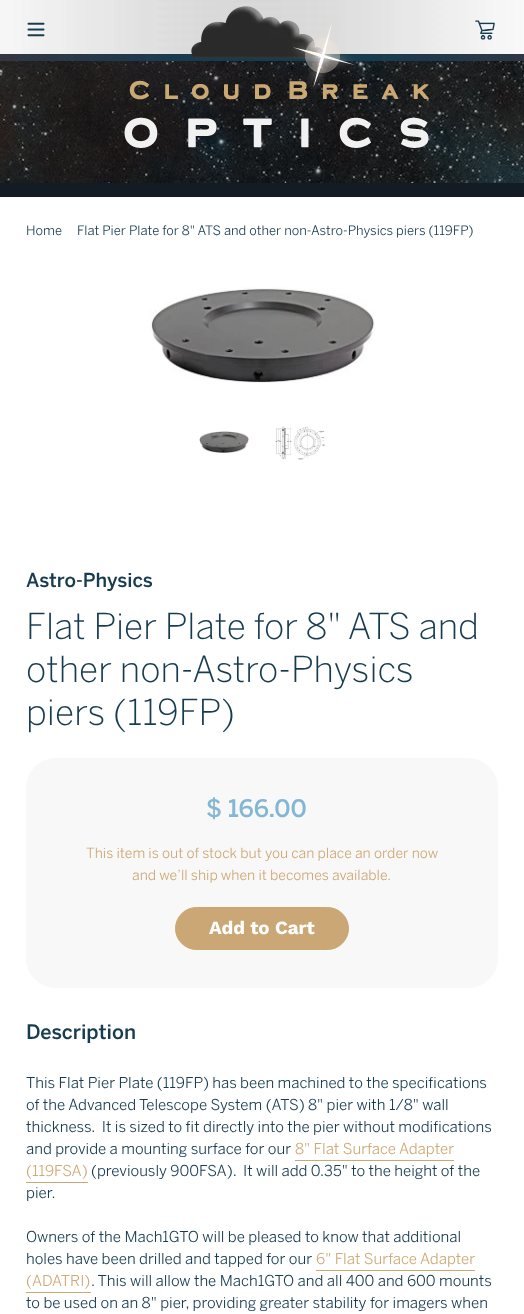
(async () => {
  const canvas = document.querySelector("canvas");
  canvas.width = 524;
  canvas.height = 1314;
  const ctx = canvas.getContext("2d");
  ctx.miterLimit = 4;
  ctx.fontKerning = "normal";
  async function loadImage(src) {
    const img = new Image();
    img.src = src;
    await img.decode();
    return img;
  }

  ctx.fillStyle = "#ffffff";
  ctx.fillRect(0, 0, 524, 1314);
  ctx.drawImage(await loadImage("img/1.png"), 0, 0, 524, 54);
  ctx.drawImage(await loadImage("img/2.png"), 27, 22, 18, 15);
  ctx.drawImage(await loadImage("img/5.png"), 0, 54, 524, 7);
  ctx.drawImage(await loadImage("img/6.png"), 0, 61, 524, 122);
  ctx.drawImage(await loadImage("img/3.png"), 124, 6, 305, 142);
  ctx.drawImage(await loadImage("img/4.png"), 475, 20, 20, 20);
  ctx.fillStyle = "#131c24";
  ctx.fillRect(0, 183, 524, 14);
  ctx.drawImage(await loadImage("img/7.png"), 149, 287, 226, 96);
  ctx.drawImage(await loadImage("img/8.png"), 199, 431, 50, 22);
  ctx.drawImage(await loadImage("img/9.png"), 275, 426, 50, 34);
  ctx.fillStyle = "#f8f8f8";
  ctx.beginPath();
  ctx.roundRect(26, 758, 472, 230, 30);
  ctx.fill();
  ctx.fillStyle = "#caa774";
  ctx.beginPath();
  ctx.roundRect(175.5, 907.5, 173, 42, 21);
  ctx.fill();
  ctx.strokeStyle = "#cba871";
  ctx.stroke();
  for (const [x, y, w, h, color] of [
    [295, 1160, 159, 1, "#cba871"],
    [26, 1182, 62, 1, "#cba871"],
    [316, 1270, 159, 1, "#cba871"],
    [26, 1292, 65, 1, "#cba871"],
  ]) {
    ctx.fillStyle = color;
    ctx.fillRect(x, y, w, h);
  }
  ctx.font = "13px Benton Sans";
  ctx.fillStyle = "#173b4f";
  ctx.fillText("Home", 26, 235);
  ctx.fillText("Flat Pier Plate for 8\" ATS and other non-Astro-Physics piers (119FP)", 77, 235);
  ctx.font = "500 19.25px Benton Sans";
  ctx.fillText("Astro-Physics", 26, 587);
  ctx.font = "300 35.6px Benton Sans";
  for (const [text, x, y] of [
    ["Flat Pier Plate for 8\" ATS and", 26, 639],
    ["other non-Astro-Physics", 26, 682],
    ["piers (119FP)", 26, 725],
  ]) {
    ctx.fillText(text, x, y);
  }
  ctx.font = "500 24px Benton Sans";
  ctx.fillStyle = "#84b7d3";
  ctx.fillText("$ 166.00", 206, 817);
  ctx.font = "14px Benton Sans";
  ctx.fillStyle = "#cfa976";
  ctx.fillText("This item is out of stock but you can place an order now", 86, 858);
  ctx.fillText("and we’ll ship when it becomes available.", 132, 880);
  ctx.font = "bold 18.75px Work Sans";
  ctx.fillStyle = "#ffffff";
  ctx.fillText("Add to Cart", 209, 934);
  ctx.font = "500 20px Benton Sans";
  ctx.fillStyle = "#173b4f";
  ctx.fillText("Description", 26, 1039);
  ctx.font = "15px Benton Sans";
  for (const [text, x, y] of [
    ["This Flat Pier Plate (119FP) has been machined to the specifications", 26, 1088],
    ["of the Advanced Telescope System (ATS) 8\" pier with 1/8\" wall", 26, 1110],
    ["thickness.  It is sized to fit directly into the pier without modifications", 26, 1132],
    ["and provide a mounting surface for our", 26, 1154],
  ]) {
    ctx.fillText(text, x, y);
  }
  ctx.fillStyle = "#cfa976";
  ctx.fillText("8\" Flat Surface Adapter", 295, 1154);
  ctx.fillText("(119FSA)", 26, 1176);
  ctx.fillStyle = "#173b4f";
  for (const [text, x, y] of [
    ["(previously 900FSA).  It will add 0.35\" to the height of the", 91, 1176],
    ["pier.", 26, 1198],
    ["Owners of the Mach1GTO will be pleased to know that additional", 26, 1242],
    ["holes have been drilled and tapped for our", 26, 1264],
  ]) {
    ctx.fillText(text, x, y);
  }
  ctx.fillStyle = "#cfa976";
  ctx.fillText("6\" Flat Surface Adapter", 316, 1264);
  ctx.fillText("(ADATRI)", 26, 1286);
  ctx.fillStyle = "#173b4f";
  ctx.fillText(". This will allow the Mach1GTO and all 400 and 600 mounts", 91, 1286);
  ctx.fillText("to be used on an 8\" pier, providing greater stability for imagers when", 26, 1308);
})();
